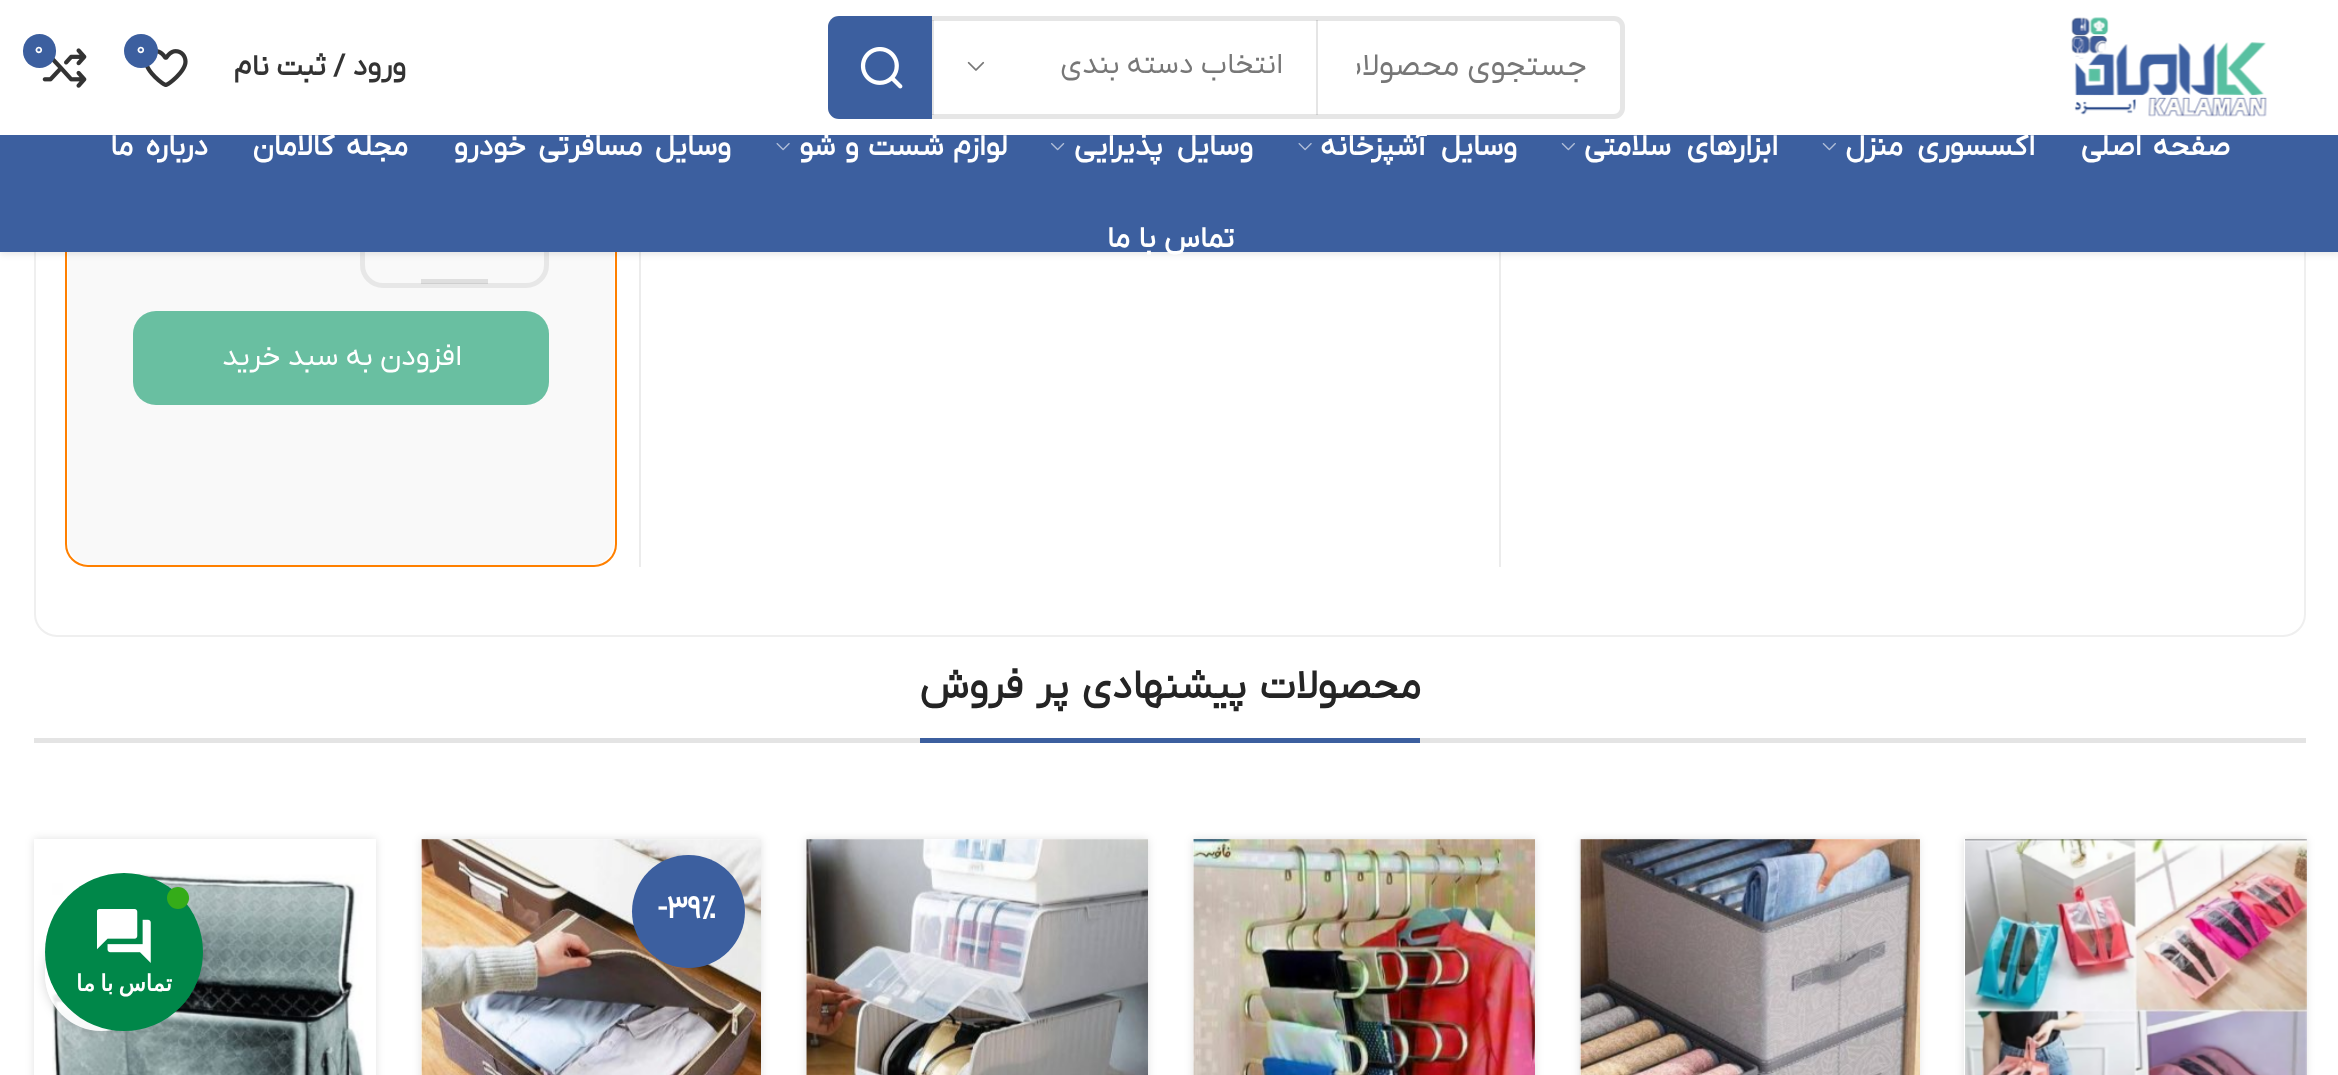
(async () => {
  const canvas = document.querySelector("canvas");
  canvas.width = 2338;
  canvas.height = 1075;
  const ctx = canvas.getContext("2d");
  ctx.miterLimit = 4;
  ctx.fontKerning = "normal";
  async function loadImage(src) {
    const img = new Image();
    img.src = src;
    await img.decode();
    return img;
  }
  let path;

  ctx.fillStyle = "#ffffff";
  ctx.fillRect(0, 0, 2338, 1075);
  ctx.beginPath();
  ctx.roundRect(35, -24, 2270, 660, 22);
  ctx.strokeStyle = "#efefef";
  ctx.lineWidth = 2;
  ctx.stroke();
  ctx.fillStyle = "#ececec";
  ctx.fillRect(1499, 252, 2, 315);
  ctx.fillRect(639, 252, 2, 315);
  ctx.beginPath();
  ctx.roundRect(66, -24, 550, 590, 22);
  ctx.strokeStyle = "#ff8000";
  ctx.stroke();
  ctx.fillStyle = "rgba(243, 243, 243, 0.5)";
  ctx.beginPath();
  ctx.roundRect(68, -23, 546, 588, 23);
  ctx.fill();
  ctx.beginPath();
  ctx.roundRect(362.5, 187.5, 184, 98, 20.5);
  ctx.strokeStyle = "#e7e7e7";
  ctx.lineWidth = 5;
  ctx.stroke();
  ctx.fillStyle = "rgba(0, 0, 0, 0.1)";
  ctx.filter = "blur(3.5px)";
  ctx.beginPath();
  ctx.rect(0, 2, 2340, 252);
  ctx.fill();
  ctx.filter = "none";
  ctx.fillStyle = "#ffffff";
  ctx.fillRect(0, 0, 2338, 135);
  ctx.drawImage(await loadImage("img/1.png"), 2071, 17, 196, 100);
  ctx.beginPath();
  ctx.roundRect(830.5, 18.5, 792, 98, 8.5);
  ctx.strokeStyle = "#e6e6e6";
  ctx.stroke();
  ctx.fillStyle = "rgba(0, 0, 0, 0.1)";
  ctx.fillRect(1316, 20, 2, 95);
  ctx.fillRect(932, 20, 2, 95);
  ctx.drawImage(await loadImage("img/2.png"), 967, 61, 18, 10);
  ctx.fillStyle = "#3c5f9f";
  ctx.beginPath();
  ctx.roundRect(828, 16, 104, 103, [11, 0, 0, 11]);
  ctx.fill();
  ctx.drawImage(await loadImage("img/3.png"), 860, 47, 43, 42);
  ctx.drawImage(await loadImage("img/4.png"), 145, 49, 43, 38);
  ctx.beginPath();
  ctx.arc(141, 51, 17, 0, Math.PI * 2);
  ctx.fill();
  ctx.drawImage(await loadImage("img/5.png"), 42, 48, 45, 40);
  ctx.beginPath();
  ctx.roundRect(23, 34, 33, 34, 16.5);
  ctx.fill();
  ctx.fillRect(0, 135, 2338, 117);
  ctx.drawImage(await loadImage("img/6.png"), 1822, 143, 14, 8);
  ctx.drawImage(await loadImage("img/6.png"), 1561, 143, 14, 8);
  ctx.drawImage(await loadImage("img/7.png"), 1298, 143, 14, 8);
  ctx.drawImage(await loadImage("img/8.png"), 1051, 143, 14, 8);
  ctx.drawImage(await loadImage("img/7.png"), 776, 143, 14, 8);
  ctx.fillStyle = "rgba(0, 0, 0, 0.1)";
  ctx.fillRect(421, 279, 67, 5);
  ctx.fillStyle = "#69bfa1";
  ctx.beginPath();
  ctx.roundRect(133, 311, 416, 94, 23);
  ctx.fill();
  ctx.fillStyle = "#e4e4e4";
  ctx.fillRect(34, 738, 2272, 5);
  ctx.fillStyle = "#3c5f9f";
  ctx.fillRect(920, 738, 500, 5);
  ctx.fillStyle = "rgba(0, 0, 0, 0.12)";
  ctx.filter = "blur(4.5px)";
  ctx.beginPath();
  ctx.rect(1964, 839, 342, 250);
  ctx.fill();
  ctx.filter = "none";
  ctx.fillStyle = "#ffffff";
  ctx.fillRect(1964, 839, 342, 236);
  ctx.drawImage(await loadImage("img/9.png"), 1965, 839, 342, 236);
  ctx.fillStyle = "rgba(0, 0, 0, 0.12)";
  ctx.filter = "blur(4.5px)";
  ctx.beginPath();
  ctx.rect(1580, 839, 339, 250);
  ctx.fill();
  ctx.filter = "none";
  ctx.fillStyle = "#ffffff";
  ctx.fillRect(1580, 839, 339, 236);
  ctx.drawImage(await loadImage("img/10.png"), 1579, 839, 341, 236);
  ctx.fillStyle = "rgba(0, 0, 0, 0.12)";
  ctx.filter = "blur(4.5px)";
  ctx.beginPath();
  ctx.rect(1193, 839, 342, 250);
  ctx.fill();
  ctx.filter = "none";
  ctx.fillStyle = "#ffffff";
  ctx.fillRect(1193, 839, 342, 236);
  ctx.drawImage(await loadImage("img/11.png"), 1193, 839, 342, 236);
  ctx.fillStyle = "rgba(0, 0, 0, 0.12)";
  ctx.filter = "blur(4.5px)";
  ctx.beginPath();
  ctx.rect(806, 839, 342, 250);
  ctx.fill();
  ctx.filter = "none";
  ctx.fillStyle = "#ffffff";
  ctx.fillRect(806, 839, 342, 236);
  ctx.drawImage(await loadImage("img/12.png"), 806, 839, 342, 236);
  ctx.fillStyle = "rgba(0, 0, 0, 0.12)";
  ctx.filter = "blur(4.5px)";
  ctx.beginPath();
  ctx.rect(421, 839, 340, 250);
  ctx.fill();
  ctx.filter = "none";
  ctx.fillStyle = "#ffffff";
  ctx.fillRect(421, 839, 340, 236);
  ctx.drawImage(await loadImage("img/13.png"), 421, 839, 340, 236);
  ctx.fillStyle = "#3c5f9f";
  ctx.beginPath();
  ctx.arc(688.5, 911.5, 56.5, 0, Math.PI * 2);
  ctx.fill();
  ctx.fillStyle = "rgba(0, 0, 0, 0.12)";
  ctx.filter = "blur(4.5px)";
  ctx.beginPath();
  ctx.rect(34, 839, 342, 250);
  ctx.fill();
  ctx.filter = "none";
  ctx.fillStyle = "#ffffff";
  ctx.fillRect(34, 839, 342, 236);
  ctx.drawImage(await loadImage("img/14.png"), 50, 873, 315, 202);
  ctx.save();
  path = new Path2D("M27 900H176V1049H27ZM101.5 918C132.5 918 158 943.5 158 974.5C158 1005.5 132.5 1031 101.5 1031C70.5 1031 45 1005.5 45 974.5C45 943.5 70.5 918 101.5 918Z");
  ctx.clip(path, "evenodd");
  ctx.fillStyle = "rgba(0, 0, 0, 0.17)";
  ctx.filter = "blur(5.5px)";
  ctx.beginPath();
  ctx.roundRect(45, 918, 113, 113, 56.5);
  ctx.fill();
  ctx.filter = "none";
  ctx.restore();
  ctx.fillStyle = "rgba(255, 255, 255, 0.9)";
  ctx.beginPath();
  ctx.arc(101.5, 974.5, 56.5, 0, Math.PI * 2);
  ctx.fill();
  ctx.fillStyle = "#008749";
  ctx.beginPath();
  ctx.arc(124, 952, 79, 0, Math.PI * 2);
  ctx.fill();
  ctx.fillStyle = "#35ac19";
  ctx.beginPath();
  ctx.arc(178, 898, 11, 0, Math.PI * 2);
  ctx.fill();
  ctx.drawImage(await loadImage("img/15.png"), 97, 909, 54, 54);
  ctx.save();
  ctx.beginPath();
  ctx.rect(1357, 47, 229, 43);
  ctx.clip();
  ctx.direction = "rtl";
  ctx.font = "31.5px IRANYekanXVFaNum";
  ctx.fillStyle = "#777777";
  ctx.fillText("جستجوی محصولات", 1587, 75);
  ctx.restore();
  ctx.direction = "rtl";
  ctx.font = "29.25px IRANYekanXVFaNum";
  ctx.fillStyle = "#777777";
  ctx.fillText("انتخاب دسته بندی", 1283, 73);
  ctx.direction = "ltr";
  ctx.font = "20px IRANYekanXVFaNum";
  ctx.fillStyle = "#ffffff";
  ctx.fillText("0", 136, 54);
  ctx.fillText("0", 34, 54);
  ctx.direction = "rtl";
  ctx.font = "bold 29.25px IRANYekanXVFaNum";
  ctx.fillStyle = "#333333";
  ctx.fillText("ورود / ثبت نام", 406, 75);
  ctx.wordSpacing = "4px";
  ctx.fillStyle = "#ffffff";
  ctx.fillText("صفحه اصلی", 2230, 155);
  ctx.wordSpacing = "7px";
  ctx.fillText("اکسسوری منزل", 2035, 155);
  ctx.wordSpacing = "8px";
  ctx.fillText("ابزارهای سلامتی", 1778, 155);
  ctx.fillText("وسایل آشپزخانه", 1517, 155);
  ctx.wordSpacing = "7px";
  ctx.fillText("وسایل پذیرایی", 1253, 155);
  ctx.wordSpacing = "2px";
  ctx.fillText("لوازم شست و شو", 1007, 155);
  ctx.wordSpacing = "5px";
  for (const [text, x, y] of [
    ["وسایل مسافرتی خودرو", 731, 155],
    ["مجله کالامان", 408, 155],
    ["درباره ما", 208, 155],
  ]) {
    ctx.fillText(text, x, y);
  }
  ctx.wordSpacing = "1px";
  ctx.fillText("تماس با ما", 1234, 247);
  ctx.wordSpacing = "0px";
  ctx.font = "29.25px IRANYekanXVFaNum";
  ctx.fillText("افزودن به سبد خرید", 462, 365);
  ctx.wordSpacing = "3px";
  ctx.font = "bold 40.5px IRANYekanXVFaNum";
  ctx.fillStyle = "#242424";
  ctx.fillText("محصولات پیشنهادی پر فروش", 1421, 698);
  ctx.wordSpacing = "0px";
  ctx.direction = "ltr";
  ctx.font = "bold 31.5px IRANYekanXVFaNum";
  ctx.fillStyle = "#ffffff";
  ctx.fillText("-39%", 658, 918);
  ctx.wordSpacing = "-2px";
  ctx.direction = "rtl";
  ctx.font = "bold 22.5px DejaVu Sans";
  ctx.fillText("تماس با ما", 172, 991);
})();
